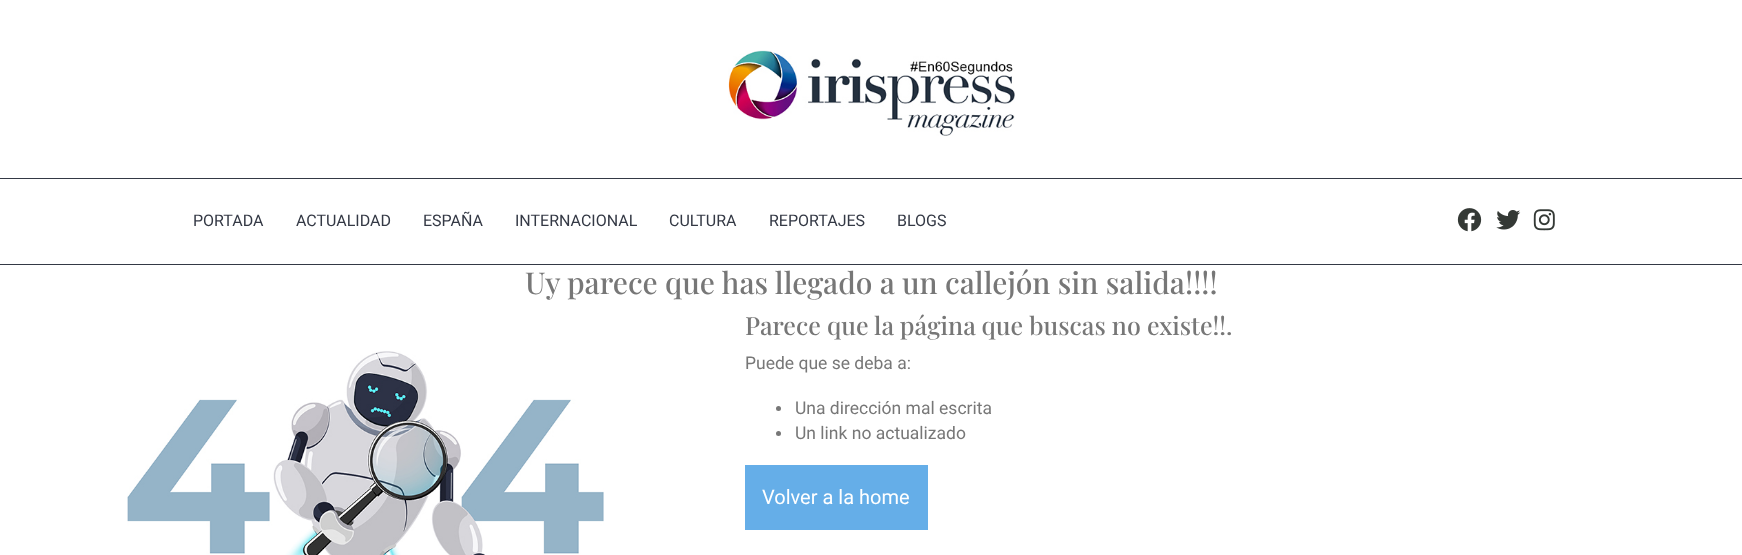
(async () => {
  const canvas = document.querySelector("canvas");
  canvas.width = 1742;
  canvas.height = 555;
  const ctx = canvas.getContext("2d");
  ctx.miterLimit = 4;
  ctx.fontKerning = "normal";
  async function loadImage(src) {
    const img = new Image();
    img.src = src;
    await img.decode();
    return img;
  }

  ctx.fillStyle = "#ffffff";
  ctx.fillRect(0, 0, 1742, 555);
  ctx.drawImage(await loadImage("img/1.png"), 728, 50, 287, 86);
  ctx.fillStyle = "#343945";
  ctx.fillRect(0, 178, 1742, 1);
  ctx.fillRect(0, 264, 1742, 1);
  ctx.drawImage(await loadImage("img/2.png"), 1457, 208, 25, 24);
  ctx.drawImage(await loadImage("img/3.png"), 1496, 210, 25, 20);
  ctx.drawImage(await loadImage("img/4.png"), 1533, 209, 22, 22);
  ctx.drawImage(await loadImage("img/5.png"), 127, 351, 477, 204);
  ctx.fillStyle = "#777777";
  ctx.beginPath();
  ctx.arc(778.5, 408.5, 2.5, 0, Math.PI * 2);
  ctx.fill();
  ctx.beginPath();
  ctx.arc(778.5, 433.5, 2.5, 0, Math.PI * 2);
  ctx.fill();
  ctx.fillStyle = "#65aee8";
  ctx.fillRect(745, 465, 183, 65);
  ctx.font = "16px Roboto";
  ctx.fillStyle = "#343945";
  for (const [text, x, y] of [
    ["PORTADA", 193, 226],
    ["ACTUALIDAD", 296, 226],
    ["ESPAÑA", 423, 226],
    ["INTERNACIONAL", 515, 226],
    ["CULTURA", 669, 226],
    ["REPORTAJES", 769, 226],
    ["BLOGS", 897, 226],
  ]) {
    ctx.fillText(text, x, y);
  }
  ctx.font = "500 30px Playfair Display";
  ctx.fillStyle = "#777777";
  ctx.fillText("Uy parece que has llegado a un callejón sin salida!!!!", 525, 294);
  ctx.font = "500 25px Playfair Display";
  ctx.fillText("Parece que la página que buscas no existe!!.", 745, 335);
  ctx.font = "17.5px Roboto";
  for (const [text, x, y] of [
    ["Puede que se deba a:", 745, 369],
    ["Una dirección mal escrita", 795, 414],
    ["Un link no actualizado", 795, 439],
  ]) {
    ctx.fillText(text, x, y);
  }
  ctx.font = "20px Roboto";
  ctx.fillStyle = "#ffffff";
  ctx.fillText("Volver a la home", 762, 504);
})();
